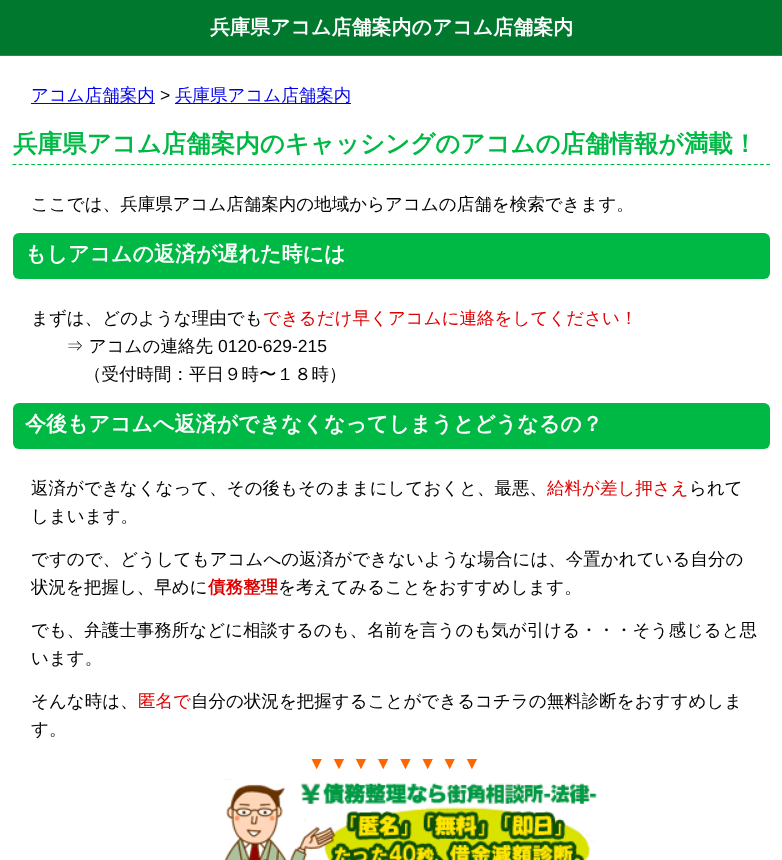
(async () => {
  const canvas = document.querySelector("canvas");
  canvas.width = 782;
  canvas.height = 860;
  const ctx = canvas.getContext("2d");
  ctx.miterLimit = 4;
  ctx.fontKerning = "normal";
  async function loadImage(src) {
    const img = new Image();
    img.src = src;
    await img.decode();
    return img;
  }
  let path;

  ctx.fillStyle = "#ffffff";
  ctx.fillRect(0, 0, 782, 860);
  for (const [x, y, w, h, color] of [
    [0, 0, 782, 55, "#00782d"],
    [0, 55, 782, 1, "#666666"],
    [31, 103, 124, 1, "#0000ee"],
    [175, 103, 176, 1, "#0000ee"],
  ]) {
    ctx.fillStyle = color;
    ctx.fillRect(x, y, w, h);
  }
  path = new Path2D("M12.5 164.5H770");
  ctx.strokeStyle = "#00b945";
  ctx.lineWidth = 1.2;
  ctx.setLineDash([3.75, 2.48]);
  ctx.stroke(path);
  ctx.fillStyle = "#00b945";
  ctx.beginPath();
  ctx.roundRect(13, 233, 757, 46, 6);
  ctx.fill();
  ctx.beginPath();
  ctx.roundRect(13, 403, 757, 46, 6);
  ctx.fill();
  ctx.drawImage(await loadImage("img/1.png"), 223, 779, 374, 81);
  ctx.font = "bold 20px WenQuanYi Zen Hei";
  ctx.fillStyle = "#ffffff";
  ctx.fillText("兵庫県アコム店舗案内のアコム店舗案内", 210, 34);
  ctx.font = "500 17.5px WenQuanYi Zen Hei";
  ctx.fillStyle = "#0000ee";
  ctx.fillText("アコム店舗案内", 31, 101);
  ctx.font = "17.5px Liberation Sans";
  ctx.fillStyle = "#000000";
  ctx.fillText(">", 160, 101);
  ctx.font = "500 17.5px WenQuanYi Zen Hei";
  ctx.fillStyle = "#0000ee";
  ctx.fillText("兵庫県アコム店舗案内", 175, 101);
  ctx.font = "bold 24.5px WenQuanYi Zen Hei";
  ctx.fillStyle = "#00b945";
  ctx.fillText("兵庫県アコム店舗案内のキャッシングのアコムの店舗情報が満載！", 13, 152);
  ctx.font = "500 17.5px WenQuanYi Zen Hei";
  ctx.fillStyle = "#000000";
  ctx.fillText("ここでは、兵庫県アコム店舗案内の地域からアコムの店舗を検索できます。", 31, 210);
  ctx.font = "bold 21px WenQuanYi Zen Hei";
  ctx.fillStyle = "#ffffff";
  ctx.fillText("もしアコムの返済が遅れた時には", 25, 261);
  ctx.font = "500 17.5px WenQuanYi Zen Hei";
  ctx.fillStyle = "#000000";
  ctx.fillText("まずは、どのような理由でも", 31, 324);
  ctx.fillStyle = "#dd0000";
  ctx.fillText("できるだけ早くアコムに連絡をしてください！", 263, 324);
  ctx.fillStyle = "#000000";
  ctx.fillText("⇒ アコムの連絡先", 66, 352);
  ctx.font = "17.5px Liberation Sans";
  ctx.fillText("0120-629-215", 218, 352);
  ctx.font = "500 17.5px WenQuanYi Zen Hei";
  ctx.fillText("（受付時間：平日９時〜１８時）", 84, 380);
  ctx.font = "bold 21px WenQuanYi Zen Hei";
  ctx.fillStyle = "#ffffff";
  ctx.fillText("今後もアコムへ返済ができなくなってしまうとどうなるの？", 25, 431);
  ctx.font = "500 17.5px WenQuanYi Zen Hei";
  ctx.fillStyle = "#000000";
  ctx.fillText("返済ができなくなって、その後もそのままにしておくと、最悪、", 31, 494);
  ctx.fillStyle = "#dd0000";
  ctx.fillText("給料が差し押さえ", 547, 494);
  ctx.fillStyle = "#000000";
  for (const [text, x, y] of [
    ["られて", 689, 494],
    ["しまいます。", 31, 522],
    ["ですので、どうしてもアコムへの返済ができないような場合には、今置かれている自分の", 31, 565],
    ["状況を把握し、早めに", 31, 593],
  ]) {
    ctx.fillText(text, x, y);
  }
  ctx.font = "bold 17.5px WenQuanYi Zen Hei";
  ctx.fillStyle = "#dd0000";
  ctx.fillText("債務整理", 208, 593);
  ctx.font = "500 17.5px WenQuanYi Zen Hei";
  ctx.fillStyle = "#000000";
  for (const [text, x, y] of [
    ["を考えてみることをおすすめします。", 278, 593],
    ["でも、弁護士事務所などに相談するのも、名前を言うのも気が引ける・・・そう感じると思", 31, 636],
    ["います。", 31, 664],
    ["そんな時は、", 31, 707],
  ]) {
    ctx.fillText(text, x, y);
  }
  ctx.fillStyle = "#dd0000";
  ctx.fillText("匿名で", 138, 707);
  ctx.fillStyle = "#000000";
  ctx.fillText("自分の状況を把握することができるコチラの無料診断をおすすめしま", 191, 707);
  ctx.fillText("す。", 31, 735);
  ctx.font = "17.5px Liberation Sans";
  ctx.fillStyle = "#ff6600";
  ctx.fillText("▼ ▼ ▼ ▼ ▼ ▼ ▼ ▼", 308, 769);
})();
